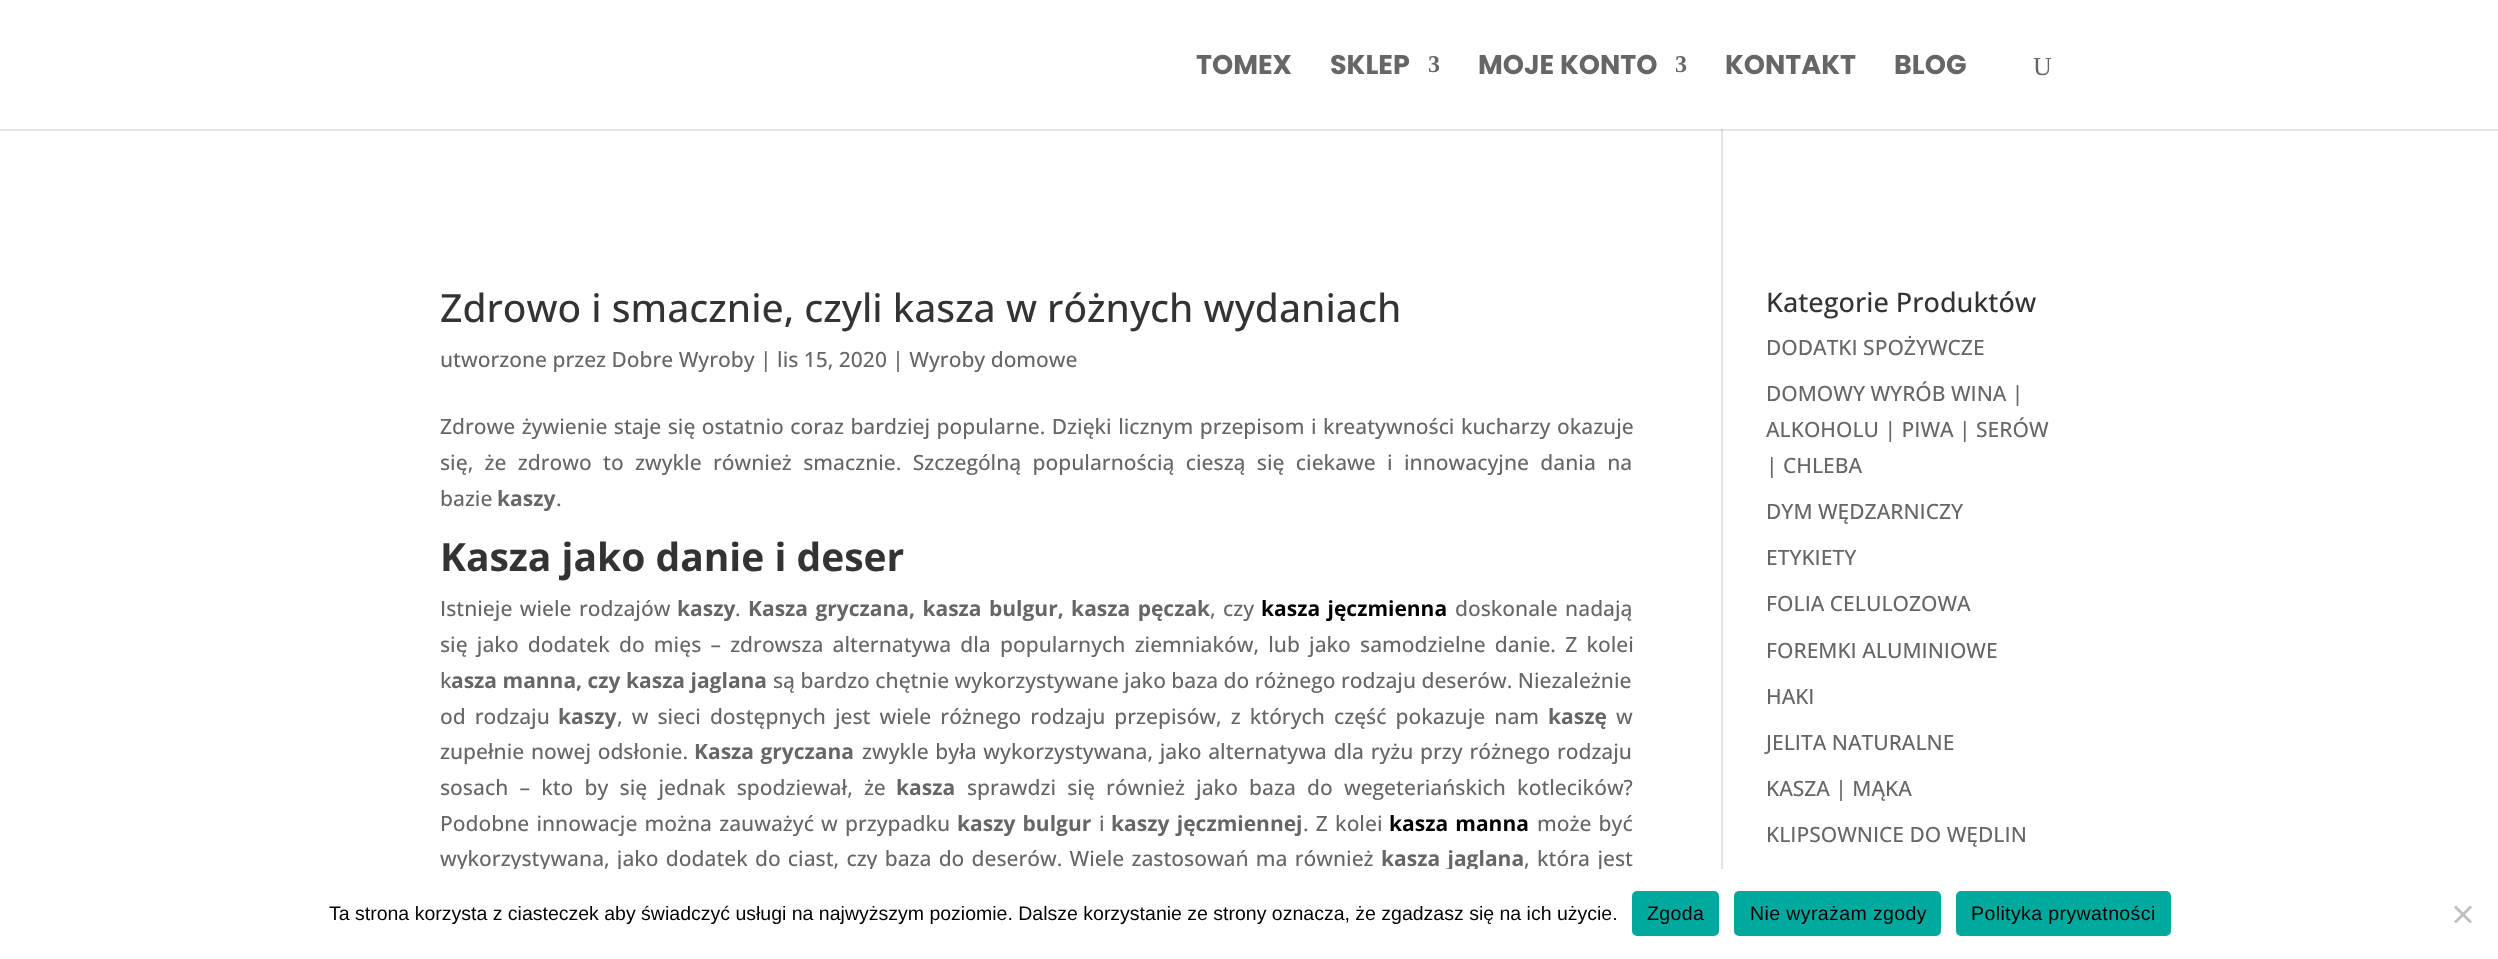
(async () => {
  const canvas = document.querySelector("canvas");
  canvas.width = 2498;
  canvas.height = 959;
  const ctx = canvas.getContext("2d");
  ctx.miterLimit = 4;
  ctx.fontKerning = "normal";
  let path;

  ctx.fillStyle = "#ffffff";
  ctx.fillRect(0, 0, 2498, 959);
  for (const [x, y, w, h, color] of [
    [0, 129, 2498, 2, "#e6e6e6"],
    [1721, 131, 2, 738, "#e2e2e2"],
    [1721, 129, 2, 2, "#cbcbcb"],
  ]) {
    ctx.fillStyle = color;
    ctx.fillRect(x, y, w, h);
  }
  ctx.fillStyle = "#00a99d";
  ctx.beginPath();
  ctx.roundRect(1632, 891, 87, 45, 5);
  ctx.fill();
  ctx.beginPath();
  ctx.roundRect(1734, 891, 207, 45, 5);
  ctx.fill();
  ctx.beginPath();
  ctx.roundRect(1956, 891, 215, 45, 5);
  ctx.fill();
  ctx.fillStyle = "#c0c0c0";
  path = new Path2D("M2470 905.5L2472 907.5L2456 923.5L2454 921.5Z");
  ctx.fill(path);
  path = new Path2D("M2454 907.5L2456 905.5L2472 921.5L2470 923.5Z");
  ctx.fill(path);
  ctx.font = "bold 27px Poppins";
  ctx.fillStyle = "#666666";
  ctx.fillText("TOMEX", 1196, 74);
  ctx.fillText("SKLEP", 1330, 74);
  ctx.font = "bold 24px Liberation Serif";
  ctx.fillText("3", 1428, 72);
  ctx.font = "bold 27px Poppins";
  ctx.fillText("MOJE KONTO", 1478, 74);
  ctx.font = "bold 24px Liberation Serif";
  ctx.fillText("3", 1675, 72);
  ctx.font = "bold 27px Poppins";
  ctx.fillText("KONTAKT", 1725, 74);
  ctx.fillText("BLOG", 1894, 74);
  ctx.font = "26px Liberation Serif";
  ctx.fillText("U", 2033, 75);
  ctx.font = "500 39px Open Sans";
  ctx.fillStyle = "#333333";
  ctx.fillText("Zdrowo i smacznie, czyli kasza w różnych wydaniach", 440, 322);
  ctx.font = "500 21px Open Sans";
  ctx.fillStyle = "#666666";
  ctx.fillText("utworzone przez Dobre Wyroby | lis 15, 2020 | Wyroby domowe", 440, 367);
  ctx.wordSpacing = "1px";
  ctx.fillText("Zdrowe żywienie staje się ostatnio coraz bardziej popularne. Dzięki licznym przepisom i kreatywności kucharzy okazuje", 440, 434);
  ctx.wordSpacing = "5.9px";
  ctx.fillText("się, że zdrowo to zwykle również smacznie. Szczególną popularnością cieszą się ciekawe i innowacyjne dania na", 440, 470);
  ctx.wordSpacing = "0px";
  ctx.fillText("bazie", 440, 506);
  ctx.font = "bold 21px Open Sans";
  ctx.fillText("kaszy", 497, 506);
  ctx.font = "500 21px Open Sans";
  ctx.fillText(".", 556, 506);
  ctx.font = "bold 39px Open Sans";
  ctx.fillStyle = "#333333";
  ctx.fillText("Kasza jako danie i deser", 440, 571);
  ctx.wordSpacing = "2px";
  ctx.font = "500 21px Open Sans";
  ctx.fillStyle = "#666666";
  ctx.fillText("Istnieje wiele rodzajów", 440, 616);
  ctx.wordSpacing = "0px";
  ctx.font = "bold 21px Open Sans";
  ctx.fillText("kaszy", 677, 616);
  ctx.font = "500 21px Open Sans";
  ctx.fillText(".", 735, 616);
  ctx.wordSpacing = "2px";
  ctx.font = "bold 21px Open Sans";
  ctx.fillText("Kasza gryczana, kasza bulgur, kasza pęczak", 748, 616);
  ctx.font = "500 21px Open Sans";
  ctx.fillText(", czy", 1210, 616);
  ctx.font = "bold 21px Open Sans";
  ctx.fillStyle = "#000000";
  ctx.fillText("kasza jęczmienna", 1261, 616);
  ctx.font = "500 21px Open Sans";
  ctx.fillStyle = "#666666";
  ctx.fillText("doskonale nadają", 1455, 616);
  ctx.wordSpacing = "3.75px";
  ctx.fillText("się jako dodatek do mięs – zdrowsza alternatywa dla popularnych ziemniaków, lub jako samodzielne danie. Z kolei", 440, 652);
  ctx.wordSpacing = "0px";
  ctx.fillText("k", 440, 688);
  ctx.font = "bold 21px Open Sans";
  ctx.fillText("asza manna, czy kasza jaglana", 451, 688);
  ctx.font = "500 21px Open Sans";
  ctx.fillText("są bardzo chętnie wykorzystywane jako baza do różnego rodzaju deserów. Niezależnie", 773, 688);
  ctx.wordSpacing = "3.6px";
  ctx.fillText("od rodzaju", 440, 724);
  ctx.wordSpacing = "0px";
  ctx.font = "bold 21px Open Sans";
  ctx.fillText("kaszy", 558, 724);
  ctx.wordSpacing = "3.6px";
  ctx.font = "500 21px Open Sans";
  ctx.fillText(", w sieci dostępnych jest wiele różnego rodzaju przepisów, z których część pokazuje nam", 617, 724);
  ctx.wordSpacing = "0px";
  ctx.font = "bold 21px Open Sans";
  ctx.fillText("kaszę", 1548, 724);
  ctx.font = "500 21px Open Sans";
  ctx.fillText("w", 1616, 724);
  ctx.wordSpacing = "1.25px";
  ctx.fillText("zupełnie nowej odsłonie.", 440, 759);
  ctx.wordSpacing = "1px";
  ctx.font = "bold 21px Open Sans";
  ctx.fillText("Kasza gryczana", 694, 759);
  ctx.wordSpacing = "1.25px";
  ctx.font = "500 21px Open Sans";
  ctx.fillText("zwykle była wykorzystywana, jako alternatywa dla ryżu przy różnego rodzaju", 862, 759);
  ctx.wordSpacing = "5.75px";
  ctx.fillText("sosach – kto by się jednak spodziewał, że", 440, 795);
  ctx.wordSpacing = "0px";
  ctx.font = "bold 21px Open Sans";
  ctx.fillText("kasza", 896, 795);
  ctx.wordSpacing = "5.75px";
  ctx.font = "500 21px Open Sans";
  ctx.fillText("sprawdzi się również jako baza do wegeteriańskich kotlecików?", 967, 795);
  ctx.wordSpacing = "1.75px";
  ctx.fillText("Podobne innowacje można zauważyć w przypadku", 440, 831);
  ctx.font = "bold 21px Open Sans";
  ctx.fillText("kaszy bulgur", 957, 831);
  ctx.wordSpacing = "0px";
  ctx.font = "500 21px Open Sans";
  ctx.fillText("i", 1099, 831);
  ctx.wordSpacing = "2px";
  ctx.font = "bold 21px Open Sans";
  ctx.fillText("kaszy jęczmiennej", 1111, 831);
  ctx.wordSpacing = "1.75px";
  ctx.font = "500 21px Open Sans";
  ctx.fillText(". Z kolei", 1303, 831);
  ctx.font = "bold 21px Open Sans";
  ctx.fillStyle = "#000000";
  ctx.fillText("kasza manna", 1389, 831);
  ctx.font = "500 21px Open Sans";
  ctx.fillStyle = "#666666";
  ctx.fillText("może być", 1537, 831);
  ctx.fillText("wykorzystywana, jako dodatek do ciast, czy baza do deserów. Wiele zastosowań ma również", 440, 866);
  ctx.wordSpacing = "2px";
  ctx.font = "bold 21px Open Sans";
  ctx.fillText("kasza jaglana", 1381, 866);
  ctx.font = "500 21px Open Sans";
  ctx.fillText(", która jest", 1524, 866);
  ctx.wordSpacing = "0px";
  ctx.font = "500 27px Open Sans";
  ctx.fillStyle = "#333333";
  ctx.fillText("Kategorie Produktów", 1766, 312);
  ctx.font = "500 21px Open Sans";
  ctx.fillStyle = "#666666";
  for (const [text, x, y] of [
    ["DODATKI SPOŻYWCZE", 1766, 355],
    ["DOMOWY WYRÓB WINA |", 1766, 401],
    ["ALKOHOLU | PIWA | SERÓW", 1766, 437],
    ["| CHLEBA", 1766, 473],
    ["DYM WĘDZARNICZY", 1766, 519],
    ["ETYKIETY", 1766, 565],
    ["FOLIA CELULOZOWA", 1766, 611],
    ["FOREMKI ALUMINIOWE", 1766, 658],
    ["HAKI", 1766, 704],
    ["JELITA NATURALNE", 1766, 750],
    ["KASZA | MĄKA", 1766, 796],
    ["KLIPSOWNICE DO WĘDLIN", 1766, 842],
  ]) {
    ctx.fillText(text, x, y);
  }
  ctx.fillStyle = "#ffffff";
  ctx.fillRect(456, 869, 1145, 3);
  ctx.font = "19.5px Liberation Sans";
  ctx.fillStyle = "#000000";
  ctx.fillText("Ta strona korzysta z ciasteczek aby świadczyć usługi na najwyższym poziomie. Dalsze korzystanie ze strony oznacza, że zgadzasz się na ich użycie.", 329, 920);
  ctx.letterSpacing = "0.4px";
  for (const [text, x, y] of [
    ["Zgoda", 1647, 920],
    ["Nie wyrażam zgody", 1750, 920],
    ["Polityka prywatności", 1971, 920],
  ]) {
    ctx.fillText(text, x, y);
  }
})();
